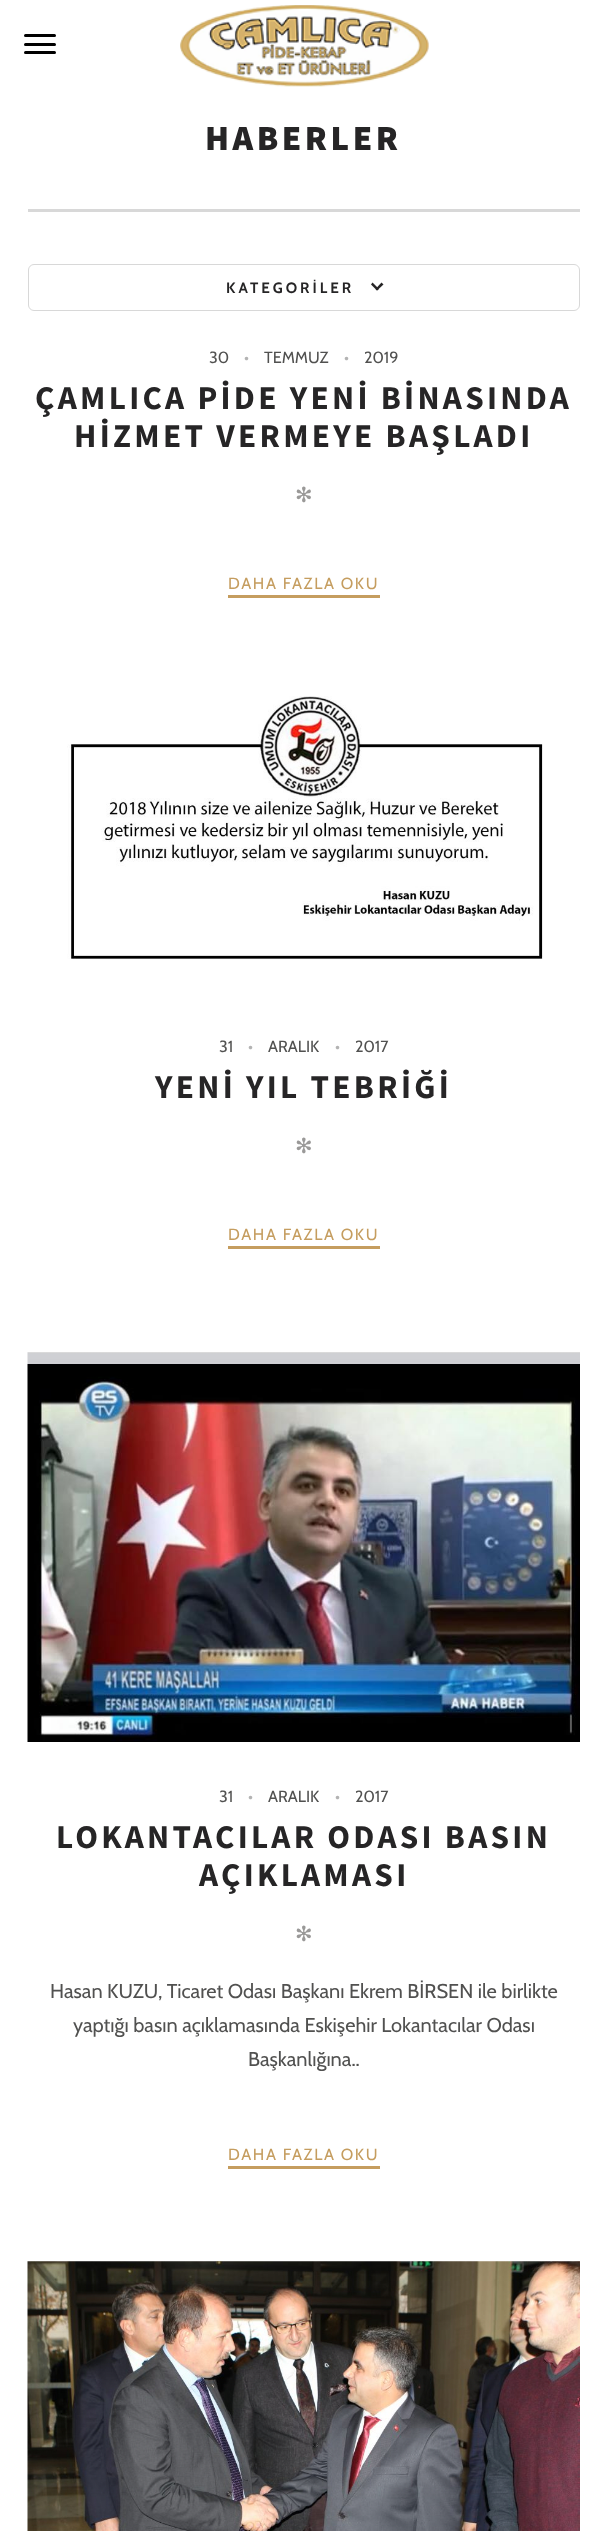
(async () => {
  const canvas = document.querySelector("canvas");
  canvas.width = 607;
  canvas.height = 2531;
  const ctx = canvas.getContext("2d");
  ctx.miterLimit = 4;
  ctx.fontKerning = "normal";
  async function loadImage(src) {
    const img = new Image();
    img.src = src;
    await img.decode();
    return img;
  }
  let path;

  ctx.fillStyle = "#ffffff";
  ctx.fillRect(0, 0, 607, 2531);
  ctx.fillStyle = "#000000";
  ctx.beginPath();
  ctx.roundRect(24, 43, 32, 3, 1.5);
  ctx.fill();
  ctx.beginPath();
  ctx.roundRect(24, 34, 32, 3, 1.5);
  ctx.fill();
  ctx.beginPath();
  ctx.roundRect(24, 51, 32, 3, 1.5);
  ctx.fill();
  ctx.drawImage(await loadImage("img/1.png"), 180, 5, 249, 82);
  ctx.fillStyle = "#d8d8d8";
  ctx.fillRect(28, 209, 552, 3);
  ctx.beginPath();
  ctx.roundRect(28.5, 264.5, 551, 46, 5.5);
  ctx.strokeStyle = "#d8d8d8";
  ctx.stroke();
  ctx.fillStyle = "#262526";
  path = new Path2D("M381.5 282.5L383.5 284.5L377 290.5L375.5 289Z");
  ctx.fill(path);
  path = new Path2D("M372.5 282.5L379 289L377 290.5L371 284.5Z");
  ctx.fill(path);
  ctx.fillStyle = "#c59d5f";
  ctx.fillRect(228, 595, 152, 3);
  ctx.drawImage(await loadImage("img/2.png"), 67, 696, 476, 263);
  ctx.fillRect(228, 1246, 152, 3);
  ctx.drawImage(await loadImage("img/3.png"), 27, 1352, 553, 390);
  ctx.fillRect(228, 2166, 152, 3);
  ctx.drawImage(await loadImage("img/4.png"), 27, 2261, 553, 270);
  ctx.letterSpacing = "3.5px";
  ctx.font = "900 35.25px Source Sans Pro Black";
  ctx.fillStyle = "#262526";
  ctx.fillText("HABERLER", 205, 150);
  ctx.letterSpacing = "3px";
  ctx.font = "bold 15px Cabin";
  ctx.fillText("KATEGORİLER", 226, 293);
  ctx.letterSpacing = "0px";
  ctx.font = "16.25px Cabin";
  ctx.fillStyle = "#515150";
  ctx.fillText("30", 209, 363);
  ctx.fillStyle = "#b3b3b3";
  ctx.fillText("•", 244, 363);
  ctx.fillStyle = "#515150";
  ctx.fillText("TEMMUZ", 264, 363);
  ctx.fillStyle = "#b3b3b3";
  ctx.fillText("•", 344, 363);
  ctx.fillStyle = "#515150";
  ctx.fillText("2019", 364, 363);
  ctx.letterSpacing = "3.3px";
  ctx.font = "bold 33.25px Source Sans Pro";
  ctx.fillStyle = "#262526";
  ctx.fillText("ÇAMLICA PİDE YENİ BİNASINDA", 35, 409);
  ctx.fillText("HİZMET VERMEYE BAŞLADI", 74, 447);
  ctx.letterSpacing = "0px";
  ctx.font = "21px DejaVu Sans";
  ctx.fillStyle = "#9a9998";
  ctx.fillText("✻", 295, 502);
  ctx.letterSpacing = "1.6px";
  ctx.font = "16.25px Cabin";
  ctx.fillStyle = "#c59d5f";
  ctx.fillText("DAHA FAZLA OKU", 228, 589);
  ctx.letterSpacing = "0px";
  ctx.fillStyle = "#515150";
  ctx.fillText("31", 219, 1052);
  ctx.fillStyle = "#b3b3b3";
  ctx.fillText("•", 248, 1052);
  ctx.fillStyle = "#515150";
  ctx.fillText("ARALIK", 268, 1052);
  ctx.fillStyle = "#b3b3b3";
  ctx.fillText("•", 335, 1052);
  ctx.fillStyle = "#515150";
  ctx.fillText("2017", 355, 1052);
  ctx.letterSpacing = "3.3px";
  ctx.font = "bold 33.25px Source Sans Pro";
  ctx.fillStyle = "#262526";
  ctx.fillText("YENİ YIL TEBRİĞİ", 155, 1098);
  ctx.letterSpacing = "0px";
  ctx.font = "21px DejaVu Sans";
  ctx.fillStyle = "#9a9998";
  ctx.fillText("✻", 295, 1153);
  ctx.letterSpacing = "1.6px";
  ctx.font = "16.25px Cabin";
  ctx.fillStyle = "#c59d5f";
  ctx.fillText("DAHA FAZLA OKU", 228, 1240);
  ctx.letterSpacing = "0px";
  ctx.fillStyle = "#515150";
  ctx.fillText("31", 219, 1802);
  ctx.fillStyle = "#b3b3b3";
  ctx.fillText("•", 248, 1802);
  ctx.fillStyle = "#515150";
  ctx.fillText("ARALIK", 268, 1802);
  ctx.fillStyle = "#b3b3b3";
  ctx.fillText("•", 335, 1802);
  ctx.fillStyle = "#515150";
  ctx.fillText("2017", 355, 1802);
  ctx.letterSpacing = "3.3px";
  ctx.font = "bold 33.25px Source Sans Pro";
  ctx.fillStyle = "#262526";
  ctx.fillText("LOKANTACILAR ODASI BASIN", 56, 1848);
  ctx.fillText("AÇIKLAMASI", 199, 1886);
  ctx.letterSpacing = "0px";
  ctx.font = "21px DejaVu Sans";
  ctx.fillStyle = "#9a9998";
  ctx.fillText("✻", 295, 1941);
  ctx.font = "20px Cabin";
  ctx.fillStyle = "#515150";
  for (const [text, x, y] of [
    ["Hasan KUZU, Ticaret Odası Başkanı Ekrem BİRSEN ile birlikte", 50, 1998],
    ["yaptığı basın açıklamasında Eskişehir Lokantacılar Odası", 73, 2032],
    ["Başkanlığına..", 248, 2066],
  ]) {
    ctx.fillText(text, x, y);
  }
  ctx.letterSpacing = "1.6px";
  ctx.font = "16.25px Cabin";
  ctx.fillStyle = "#c59d5f";
  ctx.fillText("DAHA FAZLA OKU", 228, 2160);
})();
